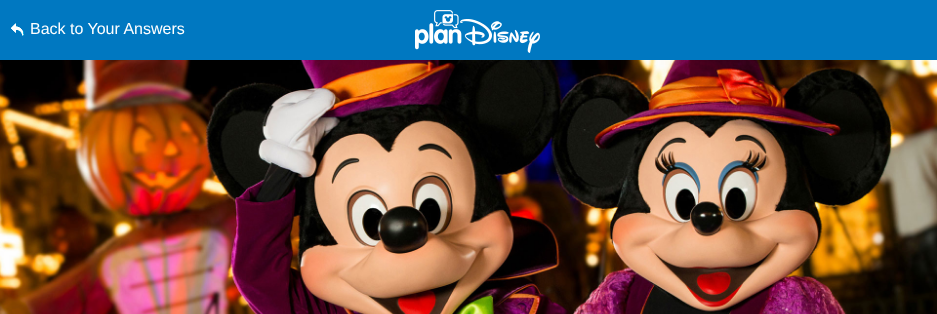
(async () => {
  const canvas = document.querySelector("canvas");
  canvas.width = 937;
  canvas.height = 314;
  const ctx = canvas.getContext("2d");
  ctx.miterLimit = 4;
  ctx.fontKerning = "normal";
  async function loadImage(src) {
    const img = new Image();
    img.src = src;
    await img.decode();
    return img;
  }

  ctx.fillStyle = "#ffffff";
  ctx.fillRect(0, 0, 937, 314);
  ctx.fillStyle = "#0078c1";
  ctx.fillRect(0, 0, 937, 60);
  ctx.drawImage(await loadImage("img/1.png"), 11, 23, 13, 13);
  ctx.drawImage(await loadImage("img/2.png"), 415, 10, 125, 43);
  ctx.drawImage(await loadImage("img/3.png"), 0, 60, 937, 254);
  ctx.font = "16px Liberation Sans";
  ctx.fillStyle = "#ffffff";
  ctx.fillText("Back to Your Answers", 30, 34);
})();
